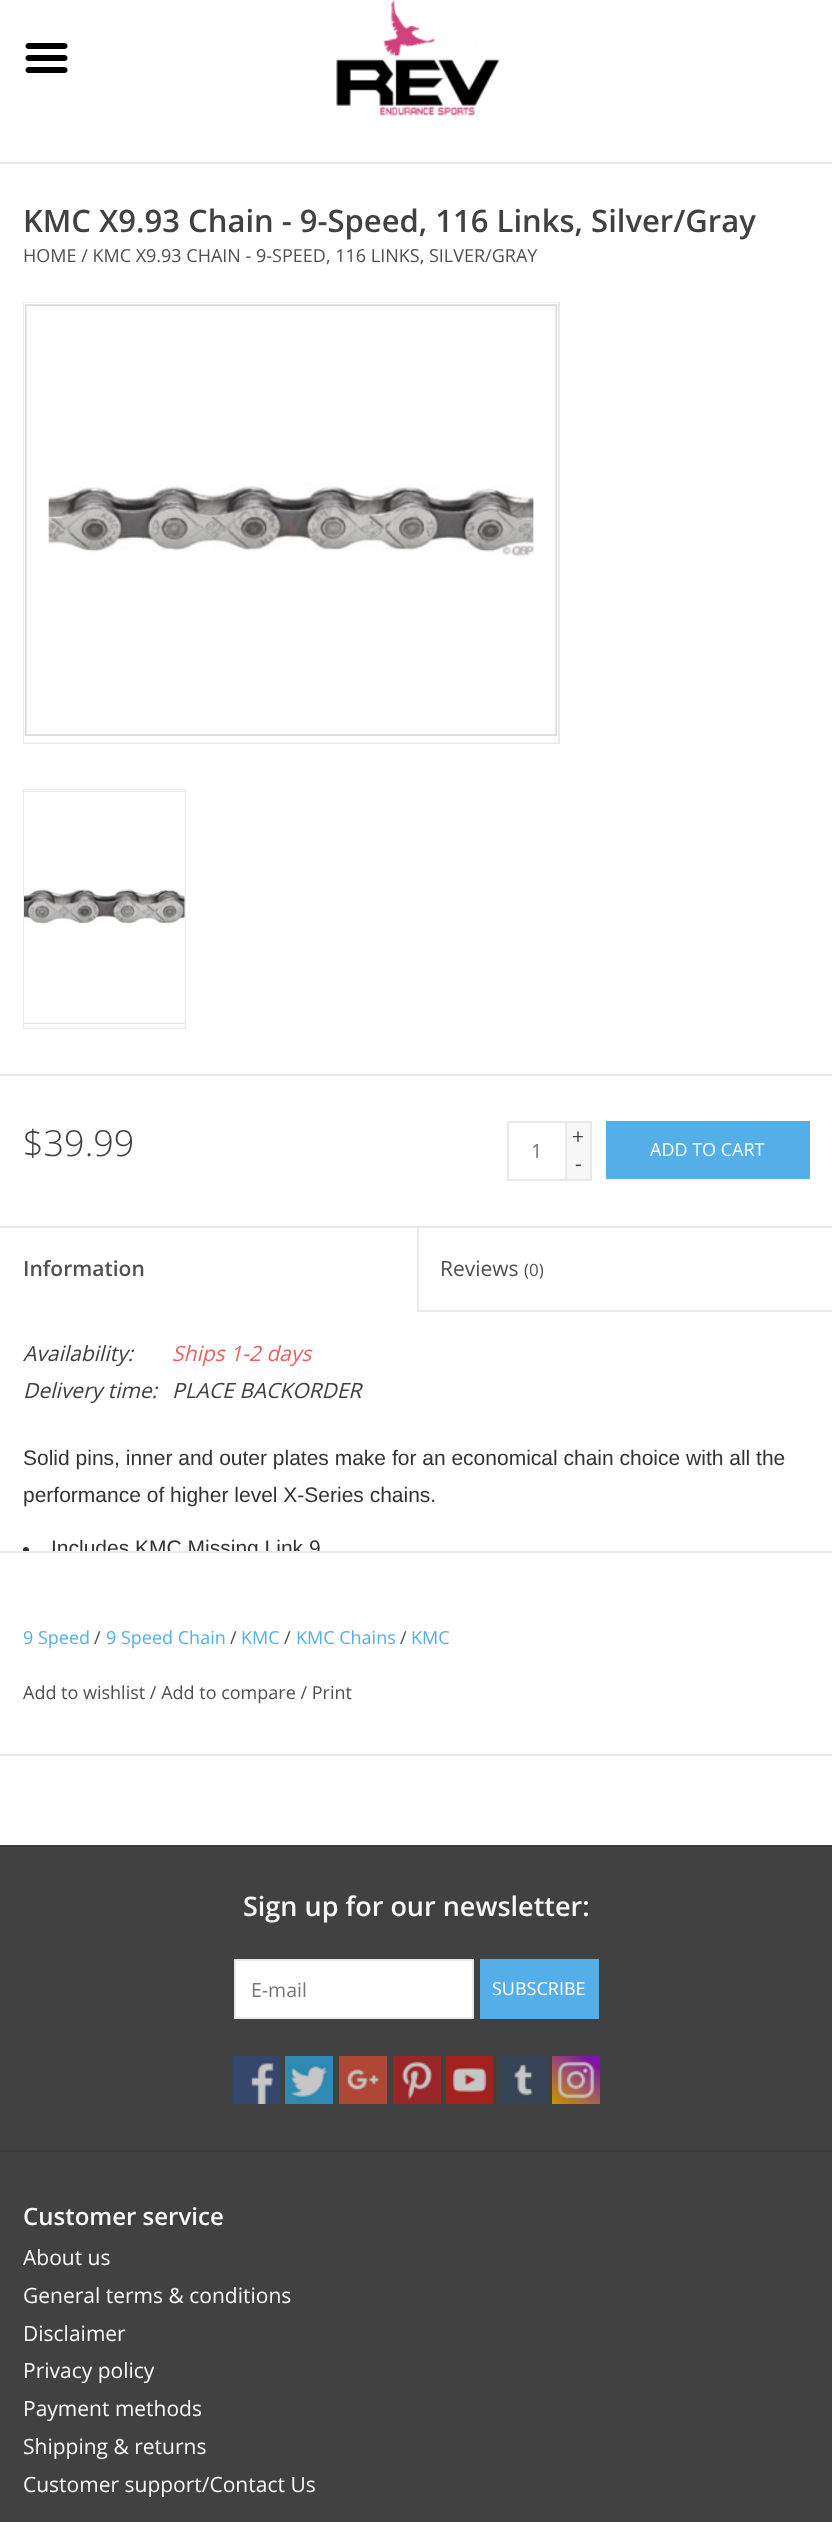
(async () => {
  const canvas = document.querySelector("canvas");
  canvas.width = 832;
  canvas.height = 2522;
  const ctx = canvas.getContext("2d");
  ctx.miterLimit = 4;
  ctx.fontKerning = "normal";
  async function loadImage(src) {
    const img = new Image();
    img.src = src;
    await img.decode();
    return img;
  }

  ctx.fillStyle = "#ffffff";
  ctx.fillRect(0, 0, 832, 2522);
  ctx.fillStyle = "#eaeaea";
  ctx.fillRect(0, 162, 832, 2);
  ctx.drawImage(await loadImage("img/1.png"), 336, 0, 164, 116);
  ctx.drawImage(await loadImage("img/2.png"), 25, 43, 43, 30);
  ctx.strokeStyle = "#eaeaea";
  ctx.lineWidth = 2;
  ctx.strokeRect(24, 303, 535, 440);
  ctx.fillStyle = "#f7f7f7";
  ctx.fillRect(24, 742, 534, 1);
  ctx.drawImage(await loadImage("img/3.png"), 24, 302, 534, 440);
  ctx.strokeRect(24, 790, 161, 238);
  ctx.fillRect(24, 791, 161, 237);
  ctx.drawImage(await loadImage("img/4.png"), 24, 790, 161, 237);
  ctx.fillStyle = "#eaeaea";
  ctx.fillRect(0, 1074, 832, 2);
  ctx.strokeRect(508, 1122, 58, 58);
  for (const [x, y, w, h, color] of [
    [567, 1123, 23, 56, "#f7f7f7"],
    [567, 1121, 24, 2, "#eaeaea"],
    [590, 1121, 2, 60, "#eaeaea"],
    [567, 1179, 24, 2, "#eaeaea"],
    [606, 1121, 204, 58, "#54afe9"],
    [0, 1226, 832, 2, "#eaeaea"],
    [417, 1310, 415, 2, "#eaeaea"],
    [417, 1227, 2, 84, "#eaeaea"],
    [0, 1551, 832, 2, "#eaeaea"],
  ]) {
    ctx.fillStyle = color;
    ctx.fillRect(x, y, w, h);
  }
  ctx.save();
  ctx.beginPath();
  ctx.rect(0, 1311, 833, 240);
  ctx.clip();
  ctx.fillStyle = "#333333";
  ctx.beginPath();
  ctx.arc(26, 1550, 3, 0, Math.PI * 2);
  ctx.fill();
  ctx.restore();
  for (const [x, y, w, h, color] of [
    [0, 1754, 832, 2, "#eaeaea"],
    [0, 1847, 832, 675, "#414141"],
    [0, 1845, 832, 2, "#3b3b3b"],
  ]) {
    ctx.fillStyle = color;
    ctx.fillRect(x, y, w, h);
  }
  ctx.fillStyle = "#ffffff";
  ctx.beginPath();
  ctx.rect(235, 1960, 238, 58);
  ctx.fill();
  ctx.strokeStyle = "#e9e9e9";
  ctx.stroke();
  ctx.fillStyle = "#54afe9";
  ctx.fillRect(480, 1959, 119, 60);
  ctx.drawImage(await loadImage("img/5.png"), 232, 2056, 49, 48);
  ctx.drawImage(await loadImage("img/6.png"), 285, 2056, 48, 48);
  ctx.drawImage(await loadImage("img/7.png"), 339, 2056, 48, 48);
  ctx.drawImage(await loadImage("img/8.png"), 393, 2056, 48, 48);
  ctx.drawImage(await loadImage("img/9.png"), 445, 2056, 49, 48);
  ctx.drawImage(await loadImage("img/10.png"), 499, 2056, 49, 48);
  ctx.drawImage(await loadImage("img/11.png"), 552, 2056, 48, 48);
  ctx.fillStyle = "#3b3b3b";
  ctx.fillRect(0, 2150, 832, 2);
  ctx.font = "600 31px Open Sans";
  ctx.fillStyle = "#414141";
  ctx.fillText("KMC X9.93 Chain - 9-Speed, 116 Links, Silver/Gray", 23, 232);
  ctx.font = "18px Open Sans";
  ctx.fillStyle = "#505050";
  ctx.fillText("HOME / KMC X9.93 CHAIN - 9-SPEED, 116 LINKS, SILVER/GRAY", 23, 262);
  ctx.font = "300 36px Open Sans";
  ctx.fillStyle = "#414141";
  ctx.fillText("$39.99", 23, 1156);
  ctx.font = "19.5px Open Sans";
  ctx.fillStyle = "#777777";
  ctx.fillText("1", 531, 1158);
  ctx.font = "21px Open Sans";
  ctx.fillStyle = "#414141";
  ctx.fillText("+", 572, 1144);
  ctx.fillText("-", 575, 1171);
  ctx.font = "18px Open Sans";
  ctx.fillStyle = "#ffffff";
  ctx.fillText("ADD TO CART", 650, 1156);
  ctx.font = "600 21px Open Sans";
  ctx.fillStyle = "#505050";
  ctx.fillText("Information", 23, 1276);
  ctx.font = "21px Open Sans";
  ctx.fillText("Reviews", 440, 1276);
  ctx.font = "17px Open Sans";
  ctx.fillText("(0)", 524, 1276);
  ctx.font = "italic 21px Open Sans";
  ctx.fillStyle = "#414141";
  ctx.fillText("Availability:", 23, 1361);
  ctx.fillStyle = "#eb6161";
  ctx.fillText("Ships 1-2 days", 172, 1361);
  ctx.fillStyle = "#414141";
  ctx.fillText("Delivery time:", 23, 1398);
  ctx.fillText("PLACE BACKORDER", 172, 1398);
  ctx.font = "21px Liberation Sans";
  ctx.fillStyle = "#333333";
  ctx.fillText("Solid pins, inner and outer plates make for an economical chain choice with all the", 23, 1465);
  ctx.fillText("performance of higher level X-Series chains.", 23, 1502);
  ctx.save();
  ctx.beginPath();
  ctx.rect(0, 1311, 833, 240);
  ctx.clip();
  ctx.fillText("Includes KMC Missing Link 9", 51, 1555);
  ctx.restore();
  ctx.font = "18px Open Sans";
  ctx.fillStyle = "#54afe9";
  ctx.fillText("9 Speed", 23, 1644);
  ctx.fillStyle = "#505050";
  ctx.fillText("/", 94, 1644);
  ctx.fillStyle = "#54afe9";
  ctx.fillText("9 Speed Chain", 106, 1644);
  ctx.fillStyle = "#505050";
  ctx.fillText("/", 230, 1644);
  ctx.fillStyle = "#54afe9";
  ctx.fillText("KMC", 241, 1644);
  ctx.fillStyle = "#505050";
  ctx.fillText("/", 284, 1644);
  ctx.fillStyle = "#54afe9";
  ctx.fillText("KMC Chains", 296, 1644);
  ctx.fillStyle = "#505050";
  ctx.fillText("/", 400, 1644);
  ctx.fillStyle = "#54afe9";
  ctx.fillText("KMC", 411, 1644);
  ctx.fillStyle = "#505050";
  ctx.fillText("Add to wishlist / Add to compare / Print", 23, 1699);
  ctx.font = "600 27px Open Sans";
  ctx.fillStyle = "#f7f7f7";
  ctx.fillText("Sign up for our newsletter:", 243, 1916);
  ctx.font = "19.5px Open Sans";
  ctx.fillStyle = "#777777";
  ctx.fillText("E-mail", 251, 1997);
  ctx.font = "18px Open Sans";
  ctx.fillStyle = "#ffffff";
  ctx.fillText("SUBSCRIBE", 492, 1995);
  ctx.font = "600 24px Open Sans";
  ctx.fillStyle = "#f7f7f7";
  ctx.fillText("Customer service", 23, 2225);
  ctx.font = "21px Open Sans";
  for (const [text, x, y] of [
    ["About us", 23, 2265],
    ["General terms & conditions", 23, 2303],
    ["Disclaimer", 23, 2341],
    ["Privacy policy", 23, 2378],
    ["Payment methods", 23, 2416],
    ["Shipping & returns", 23, 2454],
    ["Customer support/Contact Us", 23, 2492],
  ]) {
    ctx.fillText(text, x, y);
  }
})();
